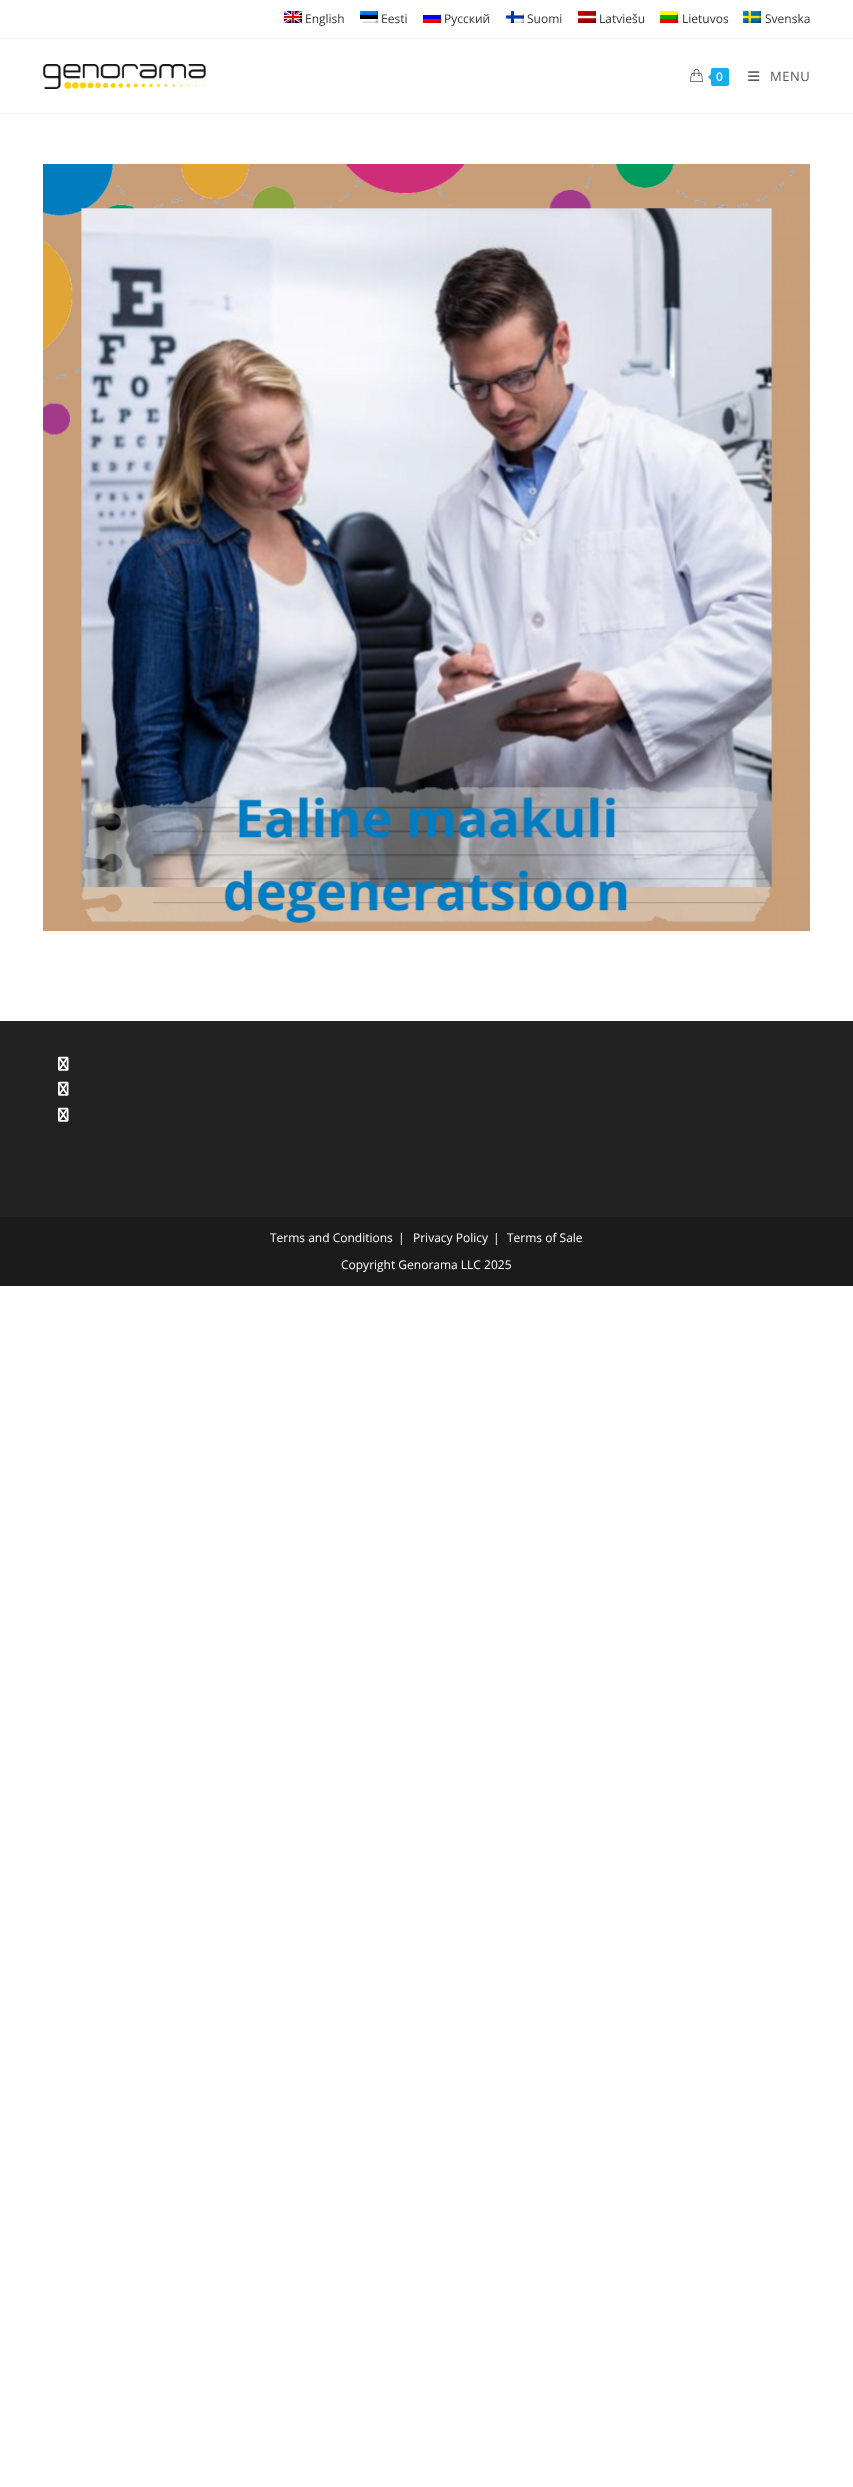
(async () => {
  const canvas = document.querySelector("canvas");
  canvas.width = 853;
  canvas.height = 2487;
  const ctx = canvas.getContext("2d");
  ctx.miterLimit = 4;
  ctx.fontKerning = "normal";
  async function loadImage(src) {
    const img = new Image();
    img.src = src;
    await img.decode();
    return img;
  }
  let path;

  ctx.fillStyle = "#ffffff";
  ctx.fillRect(0, 0, 853, 2487);
  ctx.fillStyle = "#f1f1f1";
  ctx.fillRect(0, 38, 853, 1);
  ctx.drawImage(await loadImage("img/1.png"), 284, 11, 18, 12);
  ctx.drawImage(await loadImage("img/2.png"), 360, 11, 18, 12);
  ctx.drawImage(await loadImage("img/3.png"), 423, 13, 18, 10);
  ctx.drawImage(await loadImage("img/4.png"), 506, 11, 18, 12);
  ctx.drawImage(await loadImage("img/5.png"), 578, 11, 18, 12);
  ctx.drawImage(await loadImage("img/6.png"), 660, 11, 18, 12);
  ctx.drawImage(await loadImage("img/7.png"), 743, 11, 18, 12);
  ctx.fillRect(0, 113, 853, 1);
  ctx.drawImage(await loadImage("img/8.png"), 43, 64, 163, 25);
  ctx.drawImage(await loadImage("img/9.png"), 690, 68, 13, 14);
  ctx.fillStyle = "#13aff0";
  ctx.beginPath();
  ctx.roundRect(711, 68, 18, 18, 2);
  ctx.fill();
  path = new Path2D("M713 72V82L708 77Z");
  ctx.fill(path);
  ctx.drawImage(await loadImage("img/10.png"), 748, 71, 12, 10);
  ctx.drawImage(await loadImage("img/11.png"), 43, 164, 767, 767);
  ctx.fillStyle = "#222222";
  ctx.fillRect(0, 1021, 853, 196);
  ctx.drawImage(await loadImage("img/12.png"), 58, 1056, 11, 15);
  ctx.drawImage(await loadImage("img/12.png"), 58, 1081, 11, 15);
  ctx.drawImage(await loadImage("img/12.png"), 58, 1107, 11, 15);
  ctx.fillStyle = "#1b1b1b";
  ctx.fillRect(0, 1217, 853, 69);
  ctx.font = "12px Open Sans";
  ctx.fillStyle = "#333333";
  for (const [text, x, y] of [
    ["English", 305, 23],
    ["Eesti", 381, 23],
    ["Русский", 444, 23],
    ["Suomi", 527, 23],
    ["Latviešu", 599, 23],
    ["Lietuvos", 682, 23],
    ["Svenska", 765, 23],
  ]) {
    ctx.fillText(text, x, y);
  }
  ctx.letterSpacing = "0.5px";
  ctx.font = "600 12px Open Sans";
  ctx.fillStyle = "#ffffff";
  ctx.fillText("0", 716, 81);
  ctx.font = "13px Open Sans";
  ctx.fillStyle = "#555555";
  ctx.fillText("MENU", 770, 81);
  ctx.letterSpacing = "0px";
  ctx.font = "12px Open Sans";
  ctx.fillStyle = "#ffffff";
  for (const [text, x, y] of [
    ["Terms and Conditions", 270, 1242],
    ["|", 398, 1242],
    ["Privacy Policy", 413, 1242],
    ["|", 493, 1242],
    ["Terms of Sale", 507, 1242],
    ["Copyright Genorama LLC 2025", 341, 1269],
  ]) {
    ctx.fillText(text, x, y);
  }
})();
